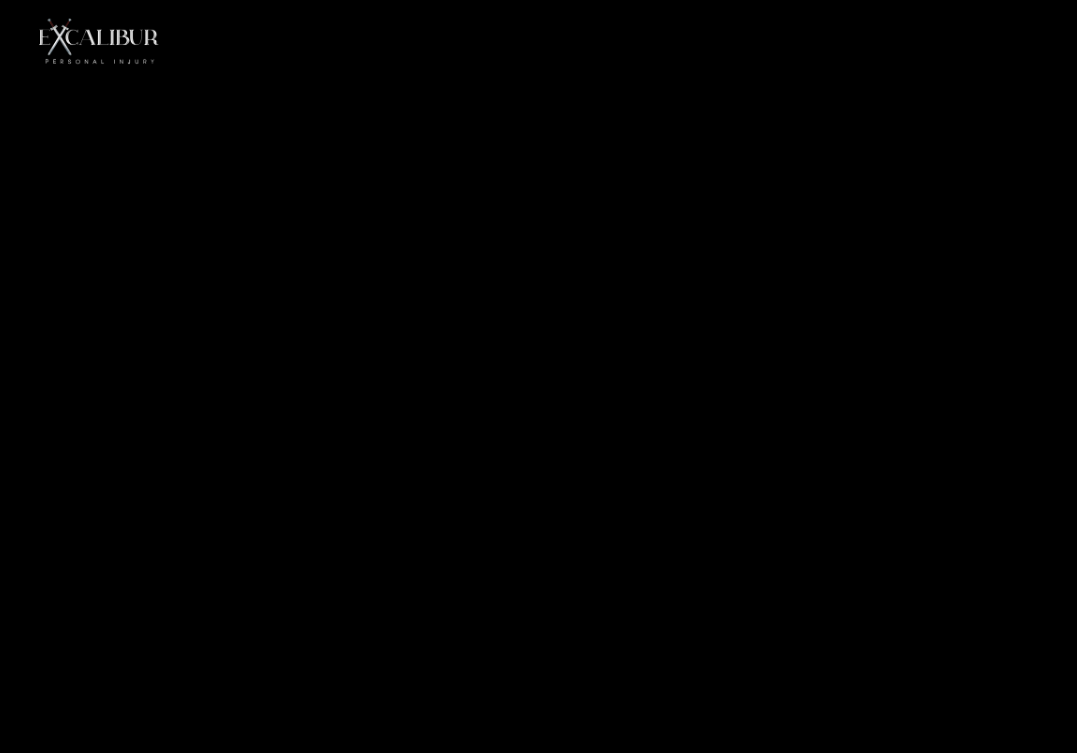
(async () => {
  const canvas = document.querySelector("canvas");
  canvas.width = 1077;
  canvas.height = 753;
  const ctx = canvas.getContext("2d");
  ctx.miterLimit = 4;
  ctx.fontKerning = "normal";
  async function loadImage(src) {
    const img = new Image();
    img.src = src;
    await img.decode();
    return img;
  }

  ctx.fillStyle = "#000000";
  ctx.fillRect(0, 0, 1077, 753);
  ctx.drawImage(await loadImage("img/1.png"), 39, 18, 120, 47);
})();
